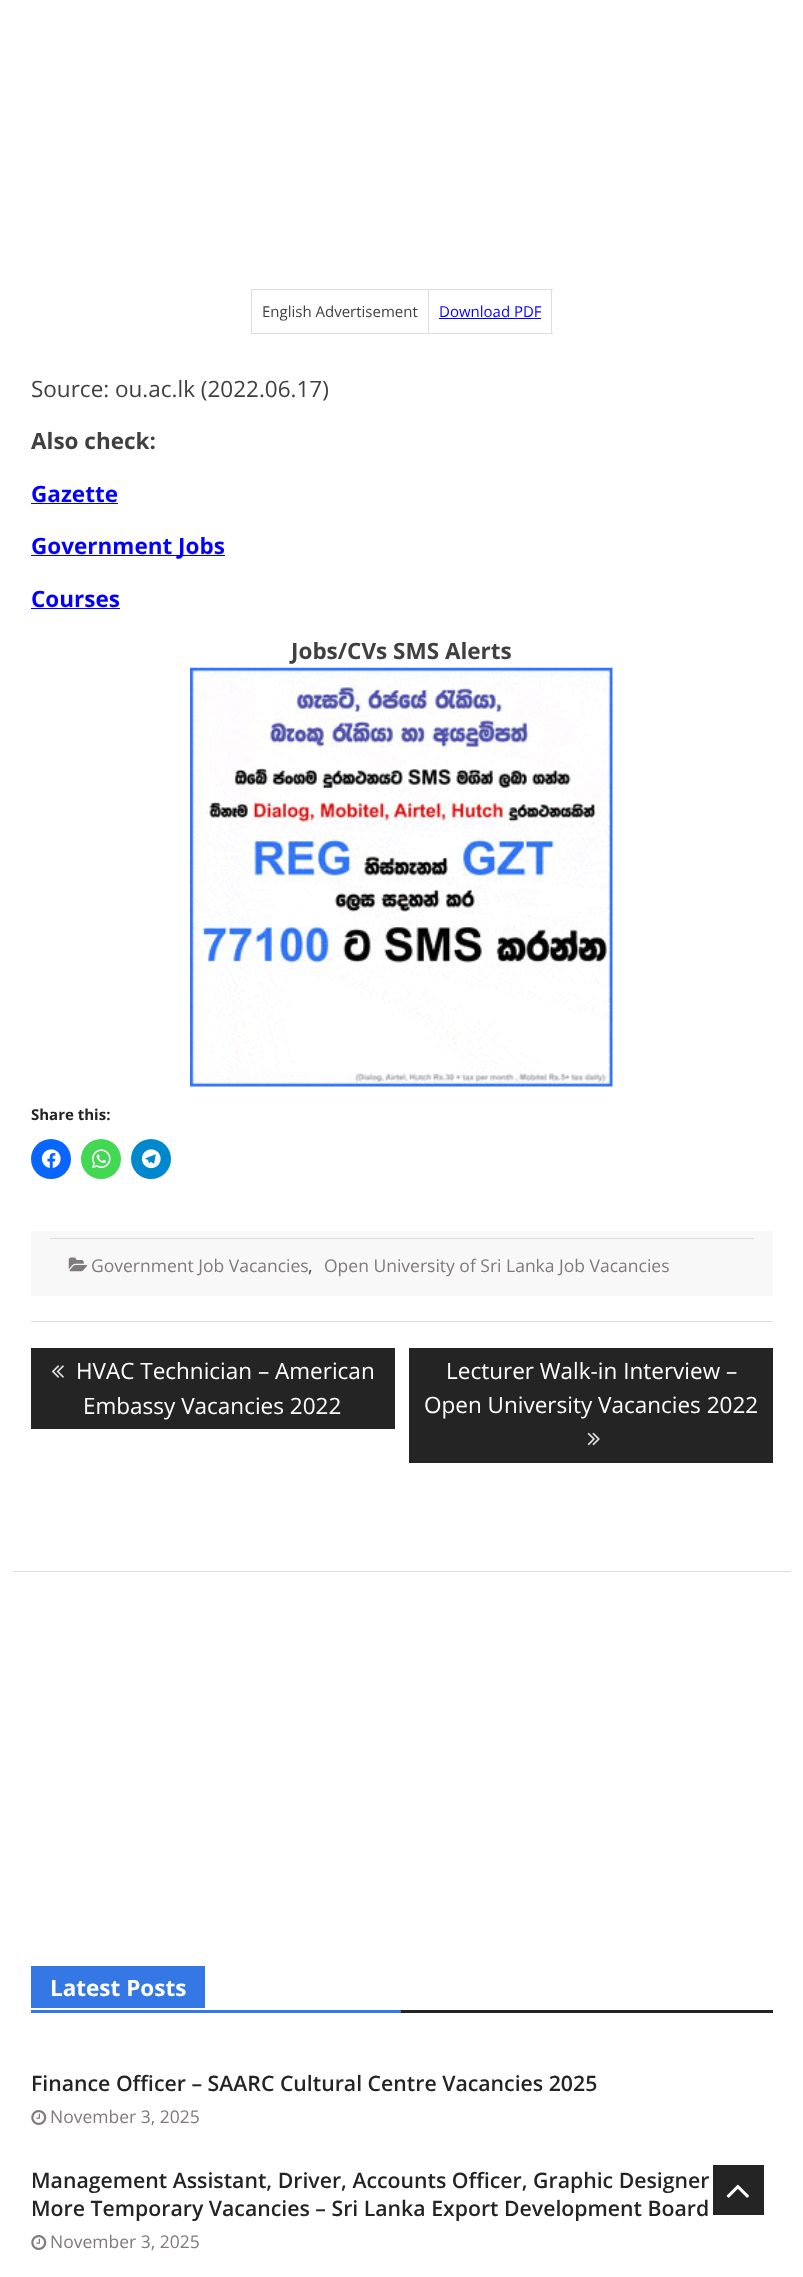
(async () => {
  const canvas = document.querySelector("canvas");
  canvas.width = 803;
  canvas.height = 2277;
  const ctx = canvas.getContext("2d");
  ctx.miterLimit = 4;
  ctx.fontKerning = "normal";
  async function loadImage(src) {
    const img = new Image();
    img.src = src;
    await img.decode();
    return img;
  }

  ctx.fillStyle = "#ffffff";
  ctx.fillRect(0, 0, 803, 2277);
  for (const [x, y, w, h, color] of [
    [13, 1571, 778, 1, "#dddddd"],
    [31, 1321, 742, 1, "#dddddd"],
    [428, 289, 125, 1, "#dddddd"],
    [551, 289, 1, 45, "#dddddd"],
    [428, 333, 125, 1, "#dddddd"],
    [428, 289, 1, 45, "#dddddd"],
    [251, 289, 178, 1, "#dddddd"],
    [251, 333, 178, 1, "#dddddd"],
    [251, 289, 1, 45, "#dddddd"],
    [439, 318, 102, 1, "#0400ff"],
    [31, 503, 87, 1, "#0400ff"],
    [31, 555, 194, 1, "#0400ff"],
    [31, 608, 89, 1, "#0400ff"],
  ]) {
    ctx.fillStyle = color;
    ctx.fillRect(x, y, w, h);
  }
  ctx.drawImage(await loadImage("img/1.png"), 190, 667, 423, 420);
  ctx.fillStyle = "#0866ff";
  ctx.beginPath();
  ctx.arc(51, 1159, 20, 0, Math.PI * 2);
  ctx.fill();
  ctx.drawImage(await loadImage("img/2.png"), 41, 1149, 20, 19);
  ctx.fillStyle = "#43d854";
  ctx.beginPath();
  ctx.arc(101, 1159, 20, 0, Math.PI * 2);
  ctx.fill();
  ctx.drawImage(await loadImage("img/3.png"), 92, 1149, 19, 19);
  ctx.fillStyle = "#0088cc";
  ctx.beginPath();
  ctx.arc(151, 1159, 20, 0, Math.PI * 2);
  ctx.fill();
  ctx.drawImage(await loadImage("img/4.png"), 141, 1149, 20, 20);
  ctx.fillStyle = "#f9f8f8";
  ctx.fillRect(31, 1231, 742, 65);
  ctx.fillStyle = "#dddddd";
  ctx.fillRect(50, 1238, 704, 1);
  ctx.drawImage(await loadImage("img/5.png"), 68, 1257, 19, 15);
  ctx.fillStyle = "#242424";
  ctx.fillRect(31, 1348, 364, 81);
  ctx.drawImage(await loadImage("img/6.png"), 51, 1365, 13, 13);
  ctx.fillRect(409, 1348, 364, 115);
  ctx.drawImage(await loadImage("img/7.png"), 587, 1432, 13, 14);
  for (const [x, y, w, h, color] of [
    [401, 2010, 372, 3, "#242424"],
    [31, 1966, 174, 42, "#3578e5"],
    [31, 2010, 370, 3, "#3578e5"],
  ]) {
    ctx.fillStyle = color;
    ctx.fillRect(x, y, w, h);
  }
  ctx.drawImage(await loadImage("img/8.png"), 31, 2110, 16, 15);
  ctx.drawImage(await loadImage("img/8.png"), 31, 2235, 16, 15);
  ctx.fillStyle = "#242424";
  ctx.fillRect(713, 2165, 51, 50);
  ctx.drawImage(await loadImage("img/9.png"), 726, 2184, 23, 14);
  ctx.font = "15px Open Sans";
  ctx.fillStyle = "#404040";
  ctx.fillText("English Advertisement", 262, 317);
  ctx.fillStyle = "#0400ff";
  ctx.fillText("Download PDF", 439, 317);
  ctx.font = "22.5px Open Sans";
  ctx.fillStyle = "#404040";
  ctx.fillText("Source: ou.ac.lk (2022.06.17)", 31, 397);
  ctx.font = "bold 22.5px Open Sans";
  ctx.fillText("Also check:", 31, 449);
  ctx.fillStyle = "#0400ff";
  for (const [text, x, y] of [
    ["Gazette", 31, 502],
    ["Government Jobs", 31, 554],
    ["Courses", 31, 607],
  ]) {
    ctx.fillText(text, x, y);
  }
  ctx.fillStyle = "#404040";
  ctx.fillText("Jobs/CVs SMS Alerts", 291, 659);
  ctx.font = "bold 15px Open Sans";
  ctx.fillStyle = "#242424";
  ctx.fillText("Share this:", 31, 1120);
  ctx.font = "17.5px Open Sans";
  ctx.fillStyle = "#807a7a";
  ctx.fillText("Government Job Vacancies", 91, 1272);
  ctx.fillStyle = "#404040";
  ctx.fillText(",", 308, 1272);
  ctx.fillStyle = "#807a7a";
  ctx.fillText("Open University of Sri Lanka Job Vacancies", 324, 1272);
  ctx.font = "22.5px Open Sans";
  ctx.fillStyle = "#ffffff";
  for (const [text, x, y] of [
    ["HVAC Technician – American", 76, 1379],
    ["Embassy Vacancies 2022", 83, 1414],
    ["Lecturer Walk-in Interview –", 446, 1379],
    ["Open University Vacancies 2022", 424, 1413],
  ]) {
    ctx.fillText(text, x, y);
  }
  ctx.font = "bold 22.5px Open Sans";
  ctx.fillText("Latest Posts", 50, 1996);
  ctx.font = "600 21.25px Open Sans";
  ctx.fillStyle = "#242424";
  ctx.fillText("Finance Officer – SAARC Cultural Centre Vacancies 2025", 31, 2091);
  ctx.font = "17.5px Open Sans";
  ctx.fillStyle = "#807a7a";
  ctx.fillText("November 3, 2025", 50, 2123);
  ctx.font = "600 21.25px Open Sans";
  ctx.fillStyle = "#242424";
  ctx.fillText("Management Assistant, Driver, Accounts Officer, Graphic Designer", 31, 2188);
  ctx.fillText("More Temporary Vacancies – Sri Lanka Export Development Board", 31, 2216);
  ctx.font = "17.5px Open Sans";
  ctx.fillStyle = "#807a7a";
  ctx.fillText("November 3, 2025", 50, 2248);
})();
